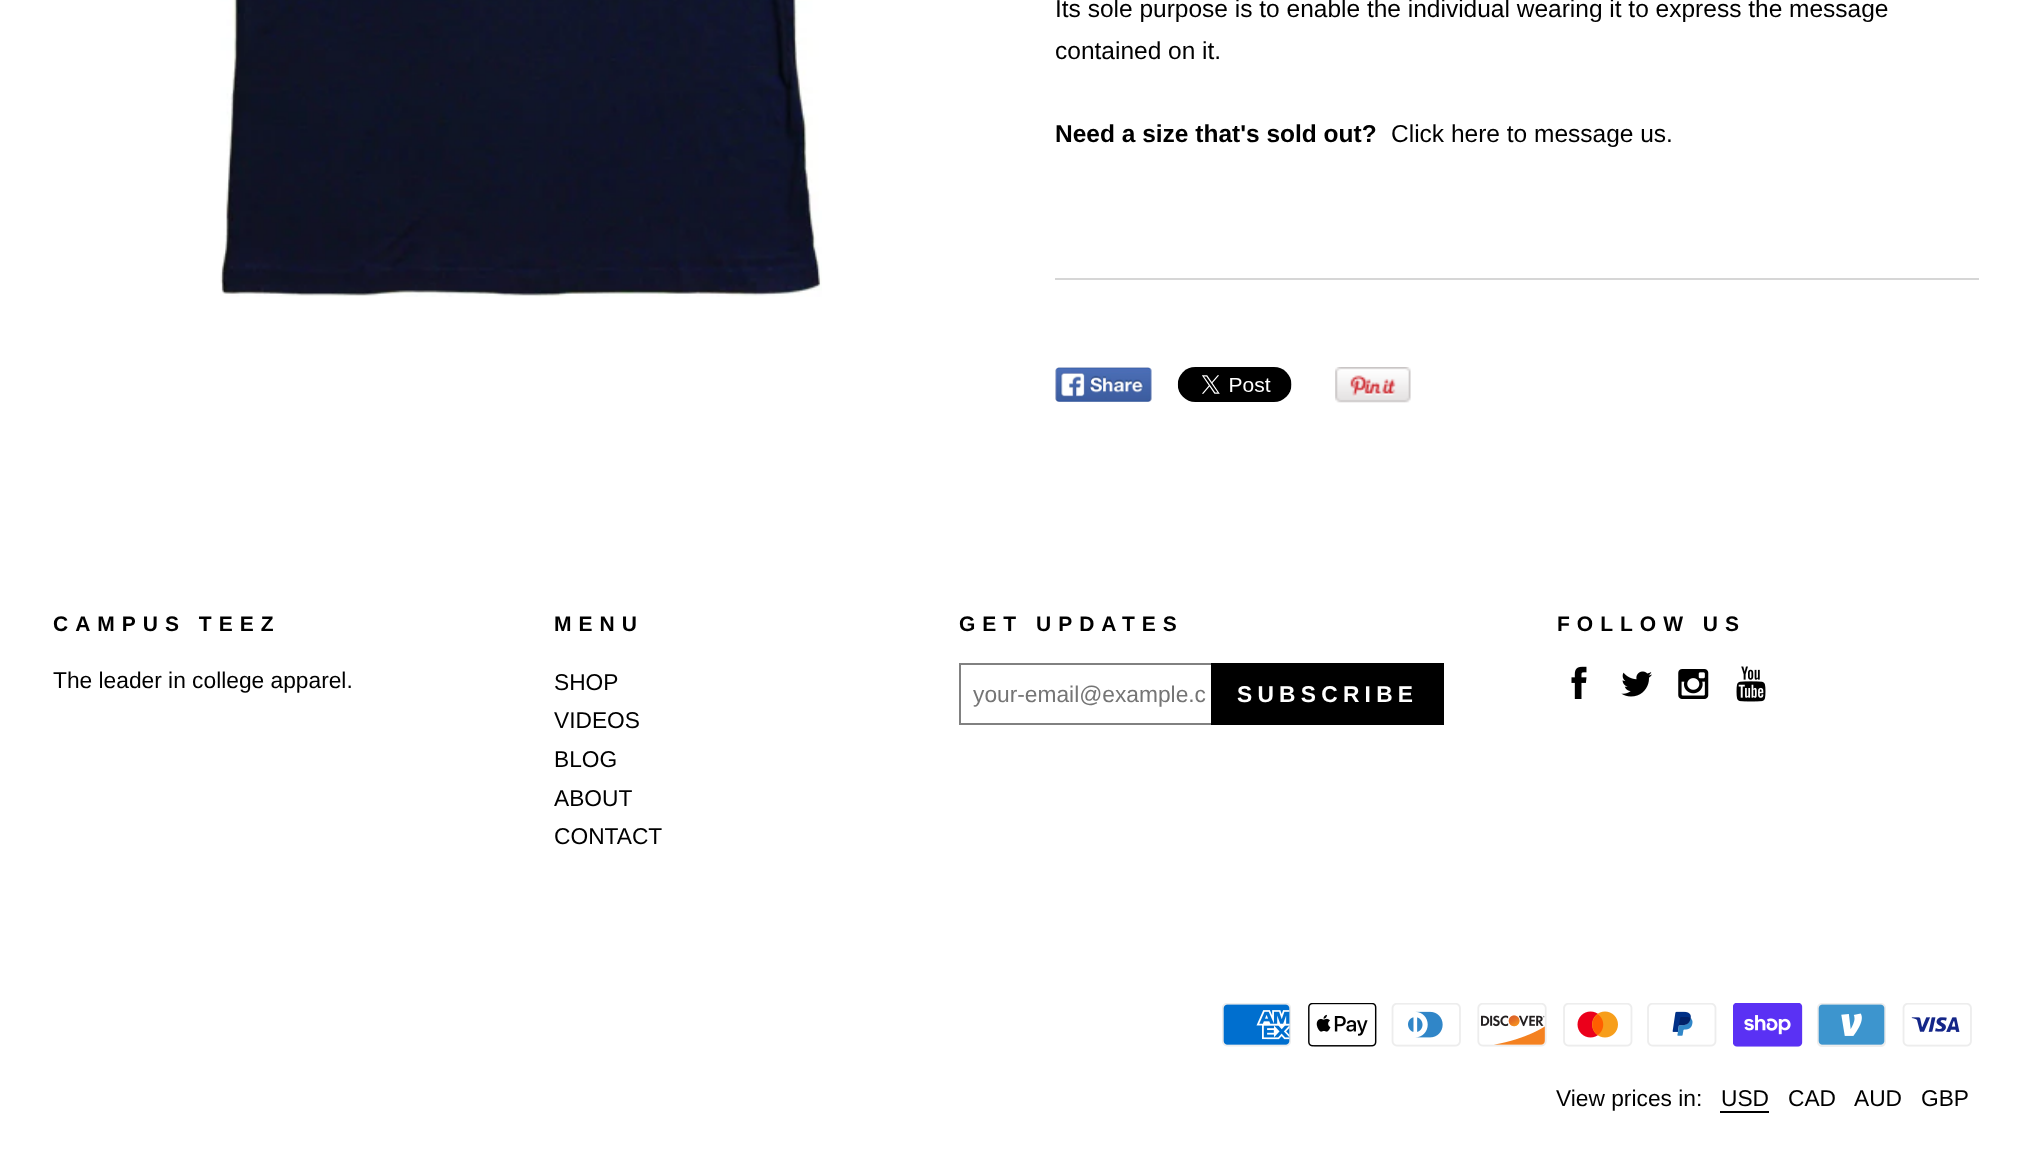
(async () => {
  const canvas = document.querySelector("canvas");
  canvas.width = 2032;
  canvas.height = 1172;
  const ctx = canvas.getContext("2d");
  ctx.miterLimit = 4;
  ctx.fontKerning = "normal";
  async function loadImage(src) {
    const img = new Image();
    img.src = src;
    await img.decode();
    return img;
  }

  ctx.fillStyle = "#ffffff";
  ctx.fillRect(0, 0, 2032, 1172);
  ctx.drawImage(await loadImage("img/1.png"), 220, 0, 602, 297);
  ctx.fillStyle = "#d6d6d6";
  ctx.fillRect(1055, 278, 924, 2);
  ctx.drawImage(await loadImage("img/2.png"), 1055, 367, 97, 35);
  ctx.drawImage(await loadImage("img/3.png"), 1177, 367, 115, 35);
  ctx.drawImage(await loadImage("img/4.png"), 1335, 367, 76, 36);
  for (const [x, y, w, h, color] of [
    [959, 663, 252, 2, "#818181"],
    [959, 723, 252, 2, "#818181"],
    [959, 663, 2, 62, "#818181"],
    [1211, 663, 233, 62, "#000000"],
  ]) {
    ctx.fillStyle = color;
    ctx.fillRect(x, y, w, h);
  }
  ctx.drawImage(await loadImage("img/5.png"), 1571, 666, 16, 33);
  ctx.drawImage(await loadImage("img/6.png"), 1621, 671, 31, 26);
  ctx.drawImage(await loadImage("img/7.png"), 1678, 669, 31, 30);
  ctx.drawImage(await loadImage("img/8.png"), 1736, 666, 30, 36);
  ctx.drawImage(await loadImage("img/9.png"), 1222, 1003, 69, 44);
  ctx.drawImage(await loadImage("img/10.png"), 1308, 1003, 69, 44);
  ctx.drawImage(await loadImage("img/11.png"), 1391, 1003, 70, 44);
  ctx.drawImage(await loadImage("img/12.png"), 1477, 1003, 70, 44);
  ctx.drawImage(await loadImage("img/13.png"), 1563, 1003, 70, 44);
  ctx.drawImage(await loadImage("img/14.png"), 1647, 1003, 70, 44);
  ctx.drawImage(await loadImage("img/15.png"), 1733, 1003, 70, 44);
  ctx.drawImage(await loadImage("img/16.png"), 1817, 1003, 69, 44);
  ctx.drawImage(await loadImage("img/17.png"), 1902, 1003, 70, 44);
  ctx.fillRect(1720, 1111, 49, 2);
  ctx.font = "24.5px Liberation Sans";
  ctx.fillText("Its sole purpose is to enable the individual wearing it to express the message", 1055, 17);
  ctx.fillText("contained on it.", 1055, 59);
  ctx.font = "bold 24.5px Liberation Sans";
  ctx.fillText("Need a size that's sold out?", 1055, 142);
  ctx.font = "24.5px Liberation Sans";
  ctx.fillText("Click here to message us.", 1391, 142);
  ctx.letterSpacing = "7px";
  ctx.font = "bold 21px Liberation Sans";
  ctx.fillText("CAMPUS TEEZ", 53, 631);
  ctx.letterSpacing = "0px";
  ctx.font = "22.75px Liberation Sans";
  ctx.fillText("The leader in college apparel.", 53, 688);
  ctx.letterSpacing = "7px";
  ctx.font = "bold 21px Liberation Sans";
  ctx.fillText("MENU", 554, 631);
  ctx.letterSpacing = "0px";
  ctx.font = "22.75px Liberation Sans";
  for (const [text, x, y] of [
    ["SHOP", 554, 690],
    ["VIDEOS", 554, 728],
    ["BLOG", 554, 767],
    ["ABOUT", 554, 806],
    ["CONTACT", 554, 844],
  ]) {
    ctx.fillText(text, x, y);
  }
  ctx.letterSpacing = "7px";
  ctx.font = "bold 21px Liberation Sans";
  ctx.fillText("GET UPDATES", 959, 631);
  ctx.letterSpacing = "0px";
  ctx.font = "22.75px Liberation Sans";
  ctx.fillStyle = "#757575";
  ctx.fillText("your-email@example.c", 973, 702);
  ctx.letterSpacing = "5.25px";
  ctx.font = "bold 22.75px Liberation Sans";
  ctx.fillStyle = "#ffffff";
  ctx.fillText("SUBSCRIBE", 1237, 702);
  ctx.letterSpacing = "7px";
  ctx.font = "bold 21px Liberation Sans";
  ctx.fillStyle = "#000000";
  ctx.fillText("FOLLOW US", 1557, 631);
  ctx.letterSpacing = "0px";
  ctx.font = "22.75px Liberation Sans";
  for (const [text, x, y] of [
    ["View prices in:", 1556, 1106],
    ["USD", 1721, 1106],
    ["CAD", 1788, 1106],
    ["AUD", 1854, 1106],
    ["GBP", 1921, 1106],
  ]) {
    ctx.fillText(text, x, y);
  }
})();
